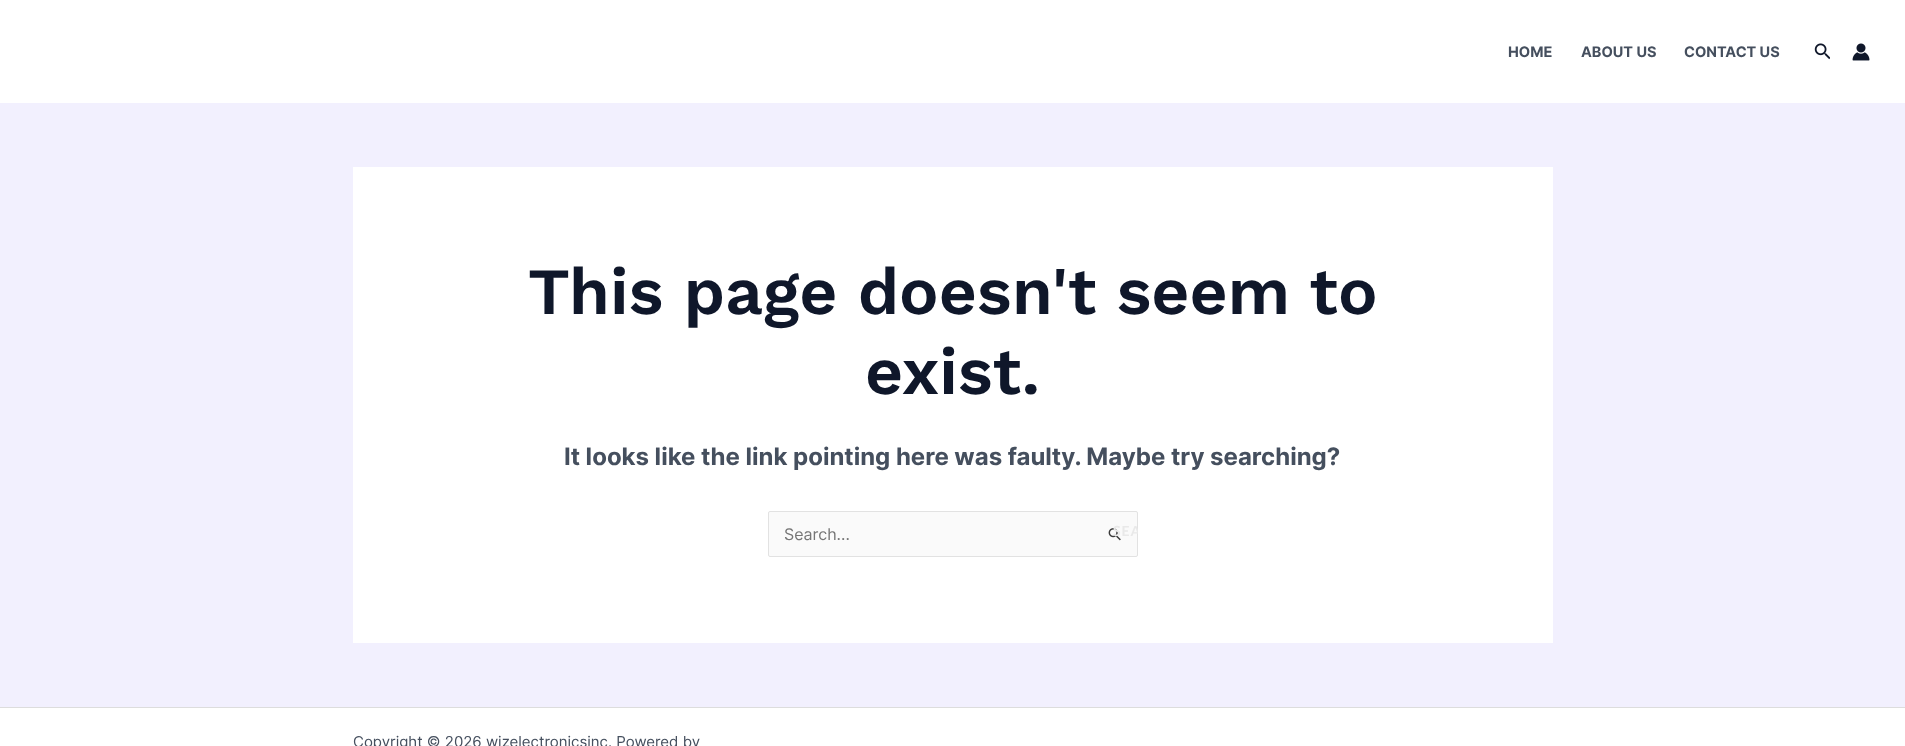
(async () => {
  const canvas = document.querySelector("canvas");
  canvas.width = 1905;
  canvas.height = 746;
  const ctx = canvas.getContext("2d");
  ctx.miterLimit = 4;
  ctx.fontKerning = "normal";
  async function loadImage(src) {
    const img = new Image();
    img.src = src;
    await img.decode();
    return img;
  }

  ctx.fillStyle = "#f2f0fe";
  ctx.fillRect(0, 0, 1905, 746);
  ctx.fillStyle = "#ffffff";
  ctx.fillRect(0, 0, 1905, 103);
  ctx.drawImage(await loadImage("img/1.png"), 1814, 43, 16, 17);
  ctx.drawImage(await loadImage("img/2.png"), 1852, 43, 18, 18);
  ctx.fillRect(353, 167, 1200, 476);
  ctx.fillStyle = "#fafafa";
  ctx.beginPath();
  ctx.roundRect(768.5, 511.5, 369, 45, 1.5);
  ctx.fill();
  ctx.strokeStyle = "#e2e2e2";
  ctx.stroke();
  ctx.drawImage(await loadImage("img/3.png"), 1108, 528, 13, 13);
  ctx.fillStyle = "#ffffff";
  ctx.fillRect(0, 708, 1905, 38);
  ctx.fillStyle = "#dddddd";
  ctx.fillRect(0, 707, 1905, 1);
  ctx.font = "bold 14.5px Inter";
  ctx.fillStyle = "#454f5e";
  for (const [text, x, y] of [
    ["HOME", 1508, 57],
    ["ABOUT US", 1581, 57],
    ["CONTACT US", 1684, 57],
  ]) {
    ctx.fillText(text, x, y);
  }
  ctx.font = "600 66px Work Sans";
  ctx.fillStyle = "#0f172a";
  ctx.fillText("This page doesn't seem to", 528, 314);
  ctx.fillText("exist.", 865, 394);
  ctx.font = "bold 24px Inter";
  ctx.fillStyle = "#454f5e";
  ctx.fillText("It looks like the link pointing here was faulty. Maybe try searching?", 564, 465);
  ctx.font = "16px Inter";
  ctx.fillStyle = "#757575";
  ctx.fillText("Search...", 784, 540);
  ctx.save();
  ctx.beginPath();
  ctx.roundRect(1093, 511, 45, 40, 2);
  ctx.clip();
  ctx.letterSpacing = "1px";
  ctx.font = "bold 14px Lato";
  ctx.fillStyle = "#e9e9e9";
  ctx.fillText("SEA", 1113, 536);
  ctx.restore();
  ctx.font = "15px Inter";
  ctx.fillStyle = "#454f5e";
  ctx.fillText("Copyright © 2026 wizelectronicsinc. Powered by", 353, 747);
})();
